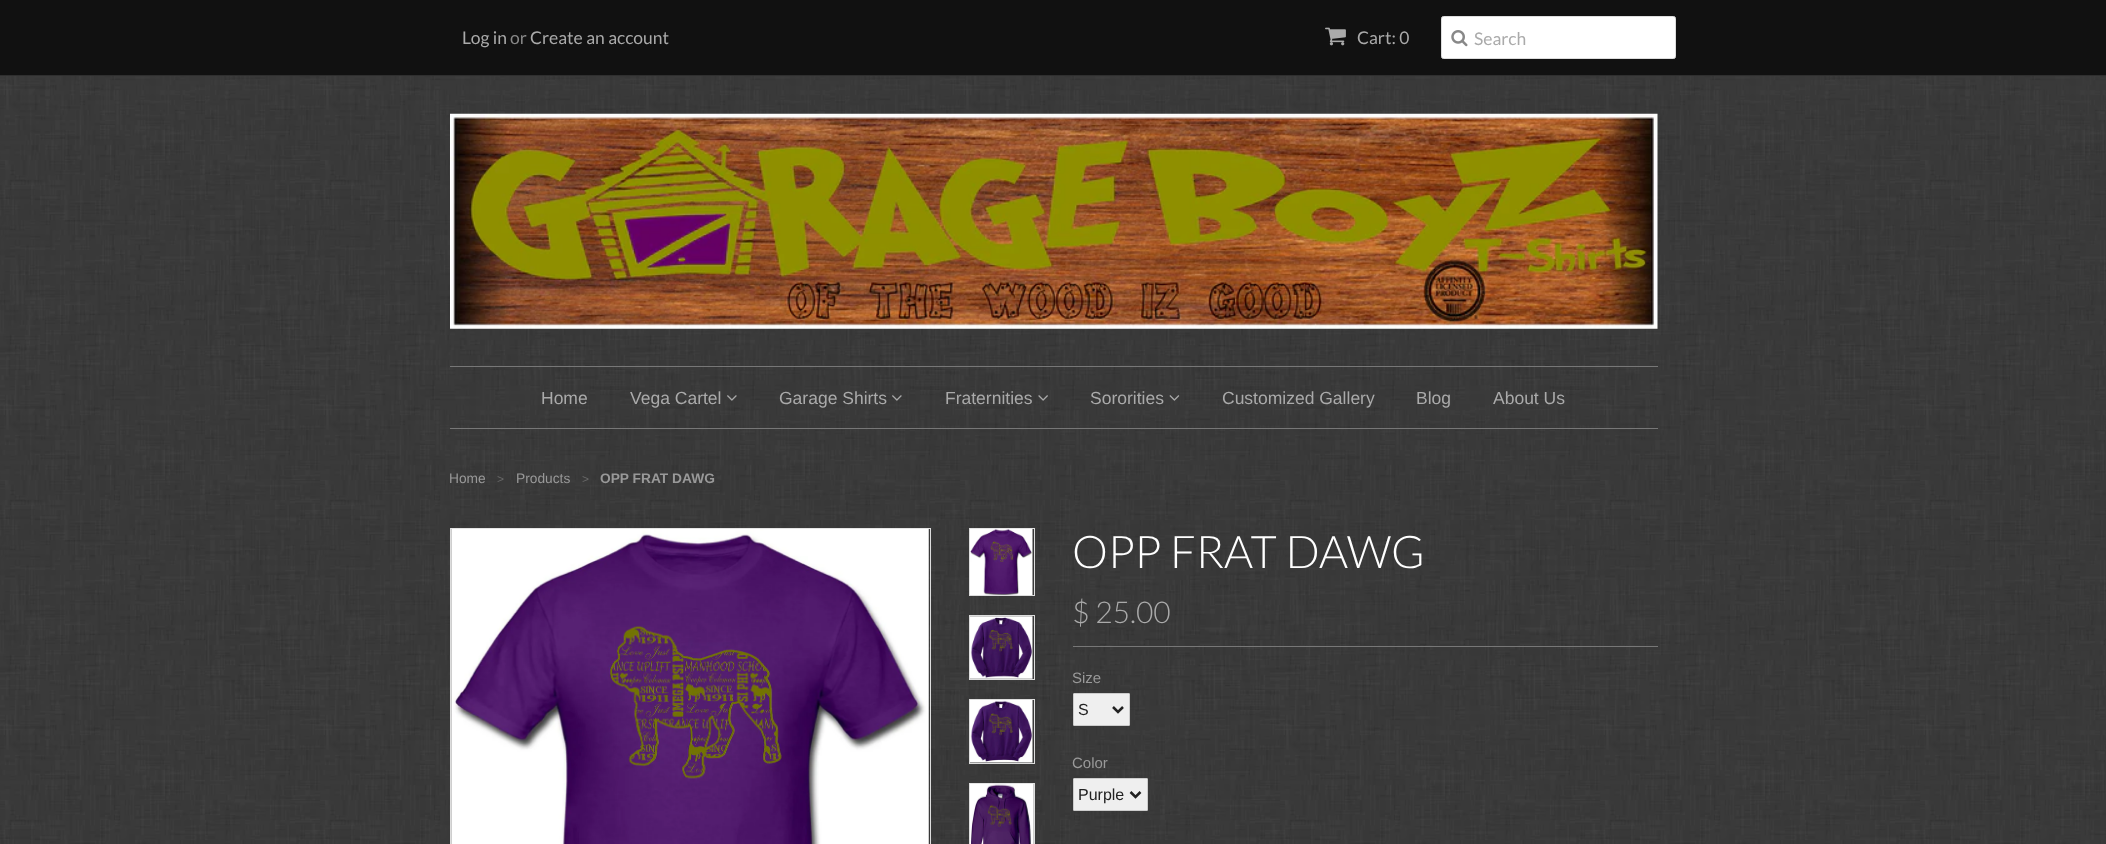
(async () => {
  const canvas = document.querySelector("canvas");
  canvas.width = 2106;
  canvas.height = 844;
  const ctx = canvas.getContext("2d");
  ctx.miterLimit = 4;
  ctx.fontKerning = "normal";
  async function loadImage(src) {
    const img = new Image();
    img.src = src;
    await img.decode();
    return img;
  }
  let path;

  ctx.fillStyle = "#ffffff";
  ctx.fillRect(0, 0, 2106, 844);
  ctx.drawImage(await loadImage("img/1.png"), 0, 76, 2106, 768);
  ctx.fillStyle = "#111111";
  ctx.fillRect(0, 0, 2106, 75);
  ctx.fillStyle = "#2f2f2f";
  ctx.fillRect(0, 75, 2106, 1);
  ctx.drawImage(await loadImage("img/2.png"), 1325, 27, 21, 19);
  ctx.fillStyle = "#ffffff";
  ctx.beginPath();
  ctx.roundRect(1441.5, 16.5, 234, 42, 2);
  ctx.fill();
  ctx.strokeStyle = "#dddddd";
  ctx.stroke();
  ctx.drawImage(await loadImage("img/3.png"), 1451, 30, 17, 17);
  ctx.drawImage(await loadImage("img/4.png"), 450, 113, 1208, 216);
  ctx.fillStyle = "#777777";
  ctx.fillRect(450, 366, 1208, 1);
  ctx.fillRect(450, 428, 1208, 1);
  ctx.drawImage(await loadImage("img/5.png"), 727, 395, 10, 6);
  ctx.drawImage(await loadImage("img/6.png"), 892, 395, 10, 6);
  ctx.drawImage(await loadImage("img/7.png"), 1038, 395, 10, 6);
  ctx.drawImage(await loadImage("img/8.png"), 1169, 395, 11, 6);
  ctx.strokeRect(450.5, 528.5, 480, 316);
  ctx.drawImage(await loadImage("img/9.png"), 451, 528, 478, 316);
  ctx.strokeRect(969.5, 528.5, 65, 67);
  ctx.drawImage(await loadImage("img/10.png"), 970, 528, 63, 67);
  ctx.strokeRect(969.5, 615.5, 65, 64);
  ctx.drawImage(await loadImage("img/11.png"), 970, 616, 63, 63);
  ctx.strokeRect(969.5, 699.5, 65, 64);
  ctx.drawImage(await loadImage("img/12.png"), 970, 700, 63, 63);
  ctx.strokeRect(969.5, 783.5, 65, 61);
  ctx.drawImage(await loadImage("img/13.png"), 970, 783, 64, 61);
  ctx.fillRect(1073, 646, 585, 1);
  ctx.fillStyle = "#efefef";
  ctx.beginPath();
  ctx.roundRect(1073.5, 693.5, 56, 32, 0.5);
  ctx.fill();
  ctx.strokeStyle = "#cccccc";
  ctx.stroke();
  path = new Path2D("M1113 707L1118 712L1123 707");
  ctx.strokeStyle = "#222222";
  ctx.lineWidth = 2.5;
  ctx.stroke(path);
  ctx.beginPath();
  ctx.roundRect(1073.5, 778.5, 74, 32, 0.5);
  ctx.fill();
  ctx.strokeStyle = "#cccccc";
  ctx.lineWidth = 1;
  ctx.stroke();
  path = new Path2D("M1130.5 792L1135.5 797L1140.5 792");
  ctx.strokeStyle = "#222222";
  ctx.lineWidth = 2.5;
  ctx.stroke(path);
  ctx.font = "17.5px Lato";
  ctx.fillStyle = "#aaaaaa";
  ctx.fillText("Log in", 462, 44);
  ctx.fillStyle = "#888888";
  ctx.fillText("or", 510, 44);
  ctx.fillStyle = "#aaaaaa";
  for (const [text, x, y] of [
    ["Create an account", 530, 44],
    ["Cart: 0", 1357, 44],
    ["Search", 1474, 45],
  ]) {
    ctx.fillText(text, x, y);
  }
  ctx.font = "17.5px Liberation Sans";
  for (const [text, x, y] of [
    ["Home", 541, 404],
    ["Vega Cartel", 630, 404],
    ["Garage Shirts", 779, 404],
    ["Fraternities", 945, 404],
    ["Sororities", 1090, 404],
    ["Customized Gallery", 1222, 404],
    ["Blog", 1416, 404],
    ["About Us", 1493, 404],
  ]) {
    ctx.fillText(text, x, y);
  }
  ctx.font = "13.75px Liberation Sans";
  ctx.fillStyle = "#999999";
  ctx.fillText("Home", 449, 483);
  ctx.font = "12px Liberation Sans";
  ctx.fillStyle = "#696969";
  ctx.fillText(">", 497, 483);
  ctx.font = "13.75px Liberation Sans";
  ctx.fillStyle = "#999999";
  ctx.fillText("Products", 516, 483);
  ctx.font = "12px Liberation Sans";
  ctx.fillStyle = "#696969";
  ctx.fillText(">", 582, 483);
  ctx.font = "bold 13.75px Liberation Sans";
  ctx.fillStyle = "#999999";
  ctx.fillText("OPP FRAT DAWG", 600, 483);
  ctx.font = "300 45px Lato";
  ctx.fillStyle = "#ffffff";
  ctx.fillText("OPP FRAT DAWG", 1072, 568);
  ctx.font = "300 30px Lato";
  ctx.fillStyle = "#aaaaaa";
  ctx.fillText("$ 25.00", 1072, 623);
  ctx.font = "15px Liberation Sans";
  ctx.fillStyle = "#999999";
  ctx.fillText("Size", 1072, 683);
  ctx.font = "16px Liberation Sans";
  ctx.fillStyle = "#222222";
  ctx.fillText("S", 1078, 715);
  ctx.font = "15px Liberation Sans";
  ctx.fillStyle = "#999999";
  ctx.fillText("Color", 1072, 768);
  ctx.font = "16px Liberation Sans";
  ctx.fillStyle = "#222222";
  ctx.fillText("Purple", 1078, 800);
})();
